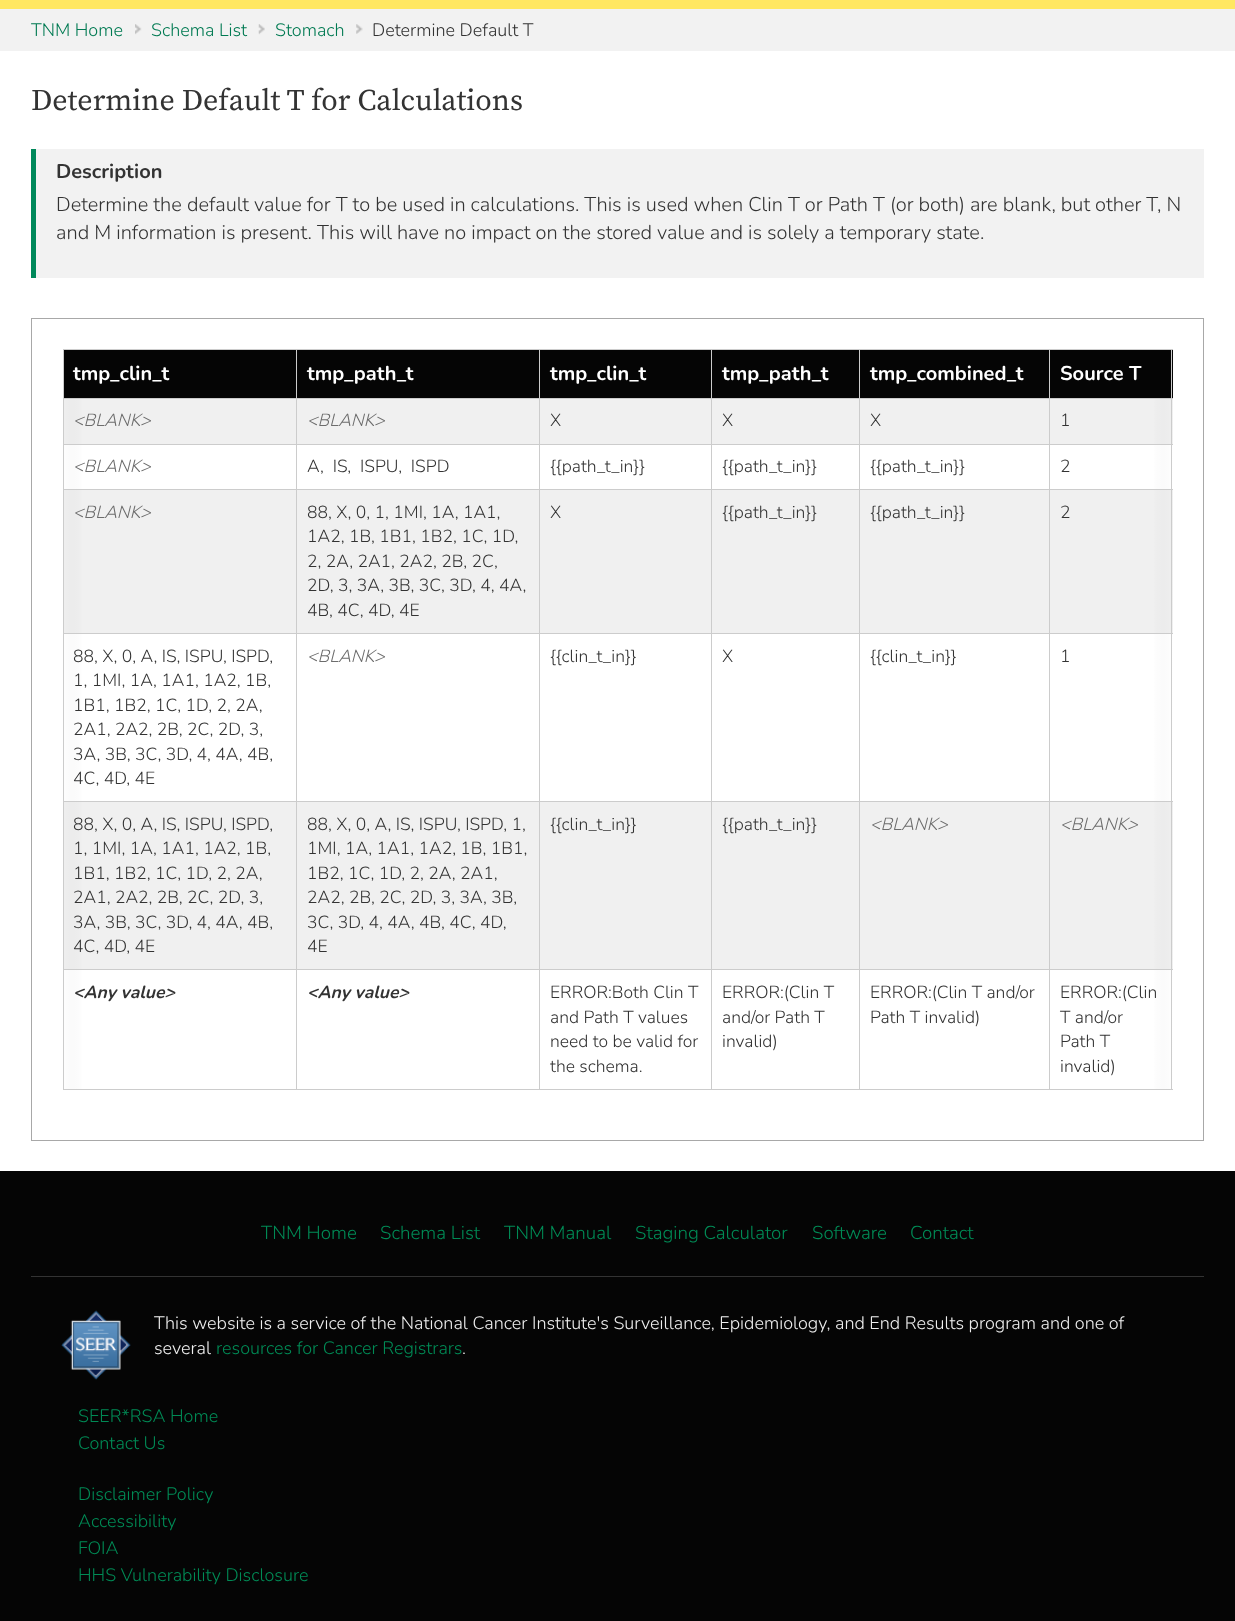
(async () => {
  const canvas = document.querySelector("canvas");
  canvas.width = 1235;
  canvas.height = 1621;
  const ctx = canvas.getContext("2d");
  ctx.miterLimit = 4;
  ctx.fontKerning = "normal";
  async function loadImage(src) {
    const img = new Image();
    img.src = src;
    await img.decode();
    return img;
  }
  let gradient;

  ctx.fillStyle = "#050505";
  ctx.fillRect(0, 0, 1235, 1621);
  ctx.fillStyle = "#ffe761";
  ctx.fillRect(0, 0, 1235, 9);
  ctx.fillStyle = "#f2f2f2";
  ctx.fillRect(0, 9, 1235, 42);
  ctx.drawImage(await loadImage("img/1.png"), 135, 24, 7, 11);
  ctx.drawImage(await loadImage("img/2.png"), 258, 24, 7, 11);
  ctx.drawImage(await loadImage("img/3.png"), 356, 24, 7, 10);
  for (const [x, y, w, h, color] of [
    [0, 51, 1235, 1120, "#ffffff"],
    [36, 149, 1168, 129, "#f2f2f2"],
    [31, 149, 5, 129, "#00885a"],
  ]) {
    ctx.fillStyle = color;
    ctx.fillRect(x, y, w, h);
  }
  ctx.strokeStyle = "#a8a8a8";
  ctx.strokeRect(31.5, 318.5, 1172, 822);
  gradient = ctx.createLinearGradient(1173, 719, 1153, 719);
  gradient.addColorStop(0, "#c3c3c5");
  gradient.addColorStop(1, "#ffffff");
  ctx.fillStyle = gradient;
  ctx.fillRect(1154, 399, 19, 690);
  gradient = ctx.createLinearGradient(62, 719, 83, 719);
  gradient.addColorStop(0, "#c3c3c5");
  gradient.addColorStop(1, "#ffffff");
  ctx.fillStyle = gradient;
  ctx.fillRect(64, 399, 18, 690);
  gradient = ctx.createLinearGradient(1173, 719, 1093, 719);
  gradient.addColorStop(0, "#ffffff");
  gradient.addColorStop(1, "rgba(255, 255, 255, 0)");
  ctx.fillStyle = gradient;
  ctx.fillRect(1154, 399, 19, 690);
  gradient = ctx.createLinearGradient(62, 719, 143, 719);
  gradient.addColorStop(0, "#ffffff");
  gradient.addColorStop(1, "rgba(255, 255, 255, 0)");
  ctx.fillStyle = gradient;
  ctx.fillRect(64, 399, 18, 690);
  for (const [x, y, w, h, color] of [
    [64, 350, 232, 48, "#050505"],
    [1049, 349, 124, 1, "#cccccc"],
    [1049, 398, 124, 1, "#cccccc"],
    [1049, 444, 124, 1, "#cccccc"],
    [1049, 489, 124, 1, "#cccccc"],
    [1049, 633, 124, 1, "#cccccc"],
    [1049, 801, 124, 1, "#cccccc"],
    [1049, 969, 124, 1, "#cccccc"],
    [1171, 969, 1, 121, "#cccccc"],
    [1049, 1089, 124, 1, "#cccccc"],
    [1049, 969, 1, 121, "#cccccc"],
    [859, 969, 191, 1, "#cccccc"],
    [1049, 801, 1, 169, "#cccccc"],
    [859, 801, 191, 1, "#cccccc"],
    [1049, 633, 1, 170, "#cccccc"],
    [859, 633, 191, 1, "#cccccc"],
    [1049, 489, 1, 145, "#cccccc"],
    [859, 489, 191, 1, "#cccccc"],
    [1049, 444, 1, 46, "#cccccc"],
    [859, 444, 191, 1, "#cccccc"],
    [1049, 398, 1, 47, "#cccccc"],
    [859, 398, 191, 1, "#cccccc"],
    [1049, 349, 1, 50, "#cccccc"],
    [859, 349, 191, 1, "#cccccc"],
    [859, 1089, 191, 1, "#cccccc"],
    [859, 969, 1, 121, "#cccccc"],
    [711, 969, 149, 1, "#cccccc"],
    [859, 801, 1, 169, "#cccccc"],
    [711, 801, 149, 1, "#cccccc"],
    [859, 633, 1, 170, "#cccccc"],
    [711, 633, 149, 1, "#cccccc"],
    [859, 489, 1, 145, "#cccccc"],
    [711, 489, 149, 1, "#cccccc"],
    [859, 444, 1, 46, "#cccccc"],
    [711, 444, 149, 1, "#cccccc"],
    [859, 398, 1, 47, "#cccccc"],
    [711, 398, 149, 1, "#cccccc"],
    [859, 349, 1, 50, "#cccccc"],
    [711, 349, 149, 1, "#cccccc"],
    [711, 1089, 149, 1, "#cccccc"],
    [711, 969, 1, 121, "#cccccc"],
    [539, 969, 174, 1, "#cccccc"],
    [711, 801, 1, 169, "#cccccc"],
    [539, 801, 174, 1, "#cccccc"],
    [711, 633, 1, 170, "#cccccc"],
    [539, 633, 174, 1, "#cccccc"],
    [711, 489, 1, 145, "#cccccc"],
    [539, 489, 174, 1, "#cccccc"],
    [711, 444, 1, 46, "#cccccc"],
    [539, 444, 174, 1, "#cccccc"],
    [711, 398, 1, 47, "#cccccc"],
    [539, 398, 174, 1, "#cccccc"],
    [711, 349, 1, 50, "#cccccc"],
    [539, 349, 174, 1, "#cccccc"],
    [539, 1089, 174, 1, "#cccccc"],
    [539, 969, 1, 121, "#cccccc"],
    [296, 969, 244, 1, "#cccccc"],
    [539, 801, 1, 169, "#cccccc"],
    [296, 801, 244, 1, "#cccccc"],
    [539, 633, 1, 170, "#cccccc"],
    [296, 633, 244, 1, "#cccccc"],
    [539, 489, 1, 145, "#cccccc"],
    [296, 489, 244, 1, "#cccccc"],
    [539, 444, 1, 46, "#cccccc"],
    [296, 444, 244, 1, "#cccccc"],
    [539, 398, 1, 47, "#cccccc"],
    [296, 398, 244, 1, "#cccccc"],
    [539, 349, 1, 50, "#cccccc"],
    [296, 349, 244, 1, "#cccccc"],
    [296, 1089, 244, 1, "#cccccc"],
    [296, 969, 1, 121, "#cccccc"],
    [63, 969, 235, 1, "#cccccc"],
    [296, 801, 1, 169, "#cccccc"],
    [63, 801, 235, 1, "#cccccc"],
    [296, 633, 1, 170, "#cccccc"],
    [63, 633, 235, 1, "#cccccc"],
    [296, 489, 1, 145, "#cccccc"],
    [63, 489, 235, 1, "#cccccc"],
    [296, 444, 1, 46, "#cccccc"],
    [63, 444, 235, 1, "#cccccc"],
    [296, 398, 1, 47, "#cccccc"],
    [63, 398, 235, 1, "#cccccc"],
    [296, 349, 1, 50, "#cccccc"],
    [63, 349, 235, 1, "#cccccc"],
    [63, 1089, 235, 1, "#cccccc"],
    [63, 969, 1, 121, "#cccccc"],
    [63, 801, 1, 169, "#cccccc"],
    [63, 633, 1, 170, "#cccccc"],
    [63, 489, 1, 145, "#cccccc"],
    [63, 444, 1, 46, "#cccccc"],
    [63, 398, 1, 47, "#cccccc"],
    [63, 349, 1, 50, "#cccccc"],
    [297, 350, 242, 48, "#050505"],
    [540, 350, 171, 48, "#050505"],
    [712, 350, 147, 48, "#050505"],
    [860, 350, 189, 48, "#050505"],
    [1050, 350, 123, 48, "#050505"],
    [1050, 399, 123, 45, "rgba(0, 0, 0, 0.06)"],
    [1050, 490, 123, 143, "rgba(0, 0, 0, 0.06)"],
    [1050, 802, 123, 167, "rgba(0, 0, 0, 0.06)"],
    [1171, 801, 1, 169, "#cccccc"],
    [1171, 633, 1, 170, "#cccccc"],
    [1171, 489, 1, 145, "#cccccc"],
    [1171, 444, 1, 46, "#cccccc"],
    [1171, 398, 1, 47, "#cccccc"],
    [1171, 349, 1, 50, "#cccccc"],
    [64, 399, 232, 45, "rgba(0, 0, 0, 0.06)"],
    [297, 399, 242, 45, "#f0f0f0"],
    [540, 399, 171, 45, "#f0f0f0"],
    [712, 399, 147, 45, "#f0f0f0"],
    [860, 399, 189, 45, "#f0f0f0"],
    [64, 490, 232, 143, "rgba(0, 0, 0, 0.06)"],
    [297, 490, 242, 143, "#f0f0f0"],
    [540, 490, 171, 143, "#f0f0f0"],
    [712, 490, 147, 143, "#f0f0f0"],
    [860, 490, 189, 143, "#f0f0f0"],
    [64, 802, 232, 167, "rgba(0, 0, 0, 0.06)"],
    [297, 802, 242, 167, "#f0f0f0"],
    [540, 802, 171, 167, "#f0f0f0"],
    [712, 802, 147, 167, "#f0f0f0"],
    [860, 802, 189, 167, "#f0f0f0"],
    [31, 1276, 1173, 1, "#333333"],
  ]) {
    ctx.fillStyle = color;
    ctx.fillRect(x, y, w, h);
  }
  ctx.drawImage(await loadImage("img/4.png"), 61, 1310, 70, 70);
  ctx.font = "200 18px Nunito";
  ctx.fillStyle = "#007a52";
  for (const [text, x, y] of [
    ["TNM Home", 31, 36],
    ["Schema List", 151, 36],
    ["Stomach", 275, 36],
  ]) {
    ctx.fillText(text, x, y);
  }
  ctx.fillStyle = "#333333";
  ctx.fillText("Determine Default T", 372, 36);
  ctx.font = "30px Source Serif Pro";
  ctx.fillText("Determine Default T for Calculations", 31, 110);
  ctx.font = "200 20px 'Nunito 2'";
  ctx.fillText("Description", 56, 178);
  ctx.font = "200 20px Nunito";
  ctx.fillText("Determine the default value for T to be used in calculations. This is used when Clin T or Path T (or both) are blank, but other T, N", 56, 211);
  ctx.fillText("and M information is present. This will have no impact on the stored value and is solely a temporary state.", 56, 239);
  ctx.font = "200 20px 'Nunito 2'";
  ctx.fillStyle = "#ffffff";
  for (const [text, x, y] of [
    ["tmp_clin_t", 73, 380],
    ["tmp_path_t", 307, 380],
    ["tmp_clin_t", 550, 380],
    ["tmp_path_t", 722, 380],
    ["tmp_combined_t", 870, 380],
    ["Source T", 1060, 380],
  ]) {
    ctx.fillText(text, x, y);
  }
  ctx.font = "italic 200 17.5px 'Nunito 2'";
  ctx.fillStyle = "#6c6c6c";
  ctx.fillText("<BLANK>", 73, 426);
  ctx.fillText("<BLANK>", 307, 426);
  ctx.font = "200 17.5px Nunito";
  ctx.fillStyle = "#333333";
  for (const [text, x, y] of [
    ["X", 550, 426],
    ["X", 722, 426],
    ["X", 870, 426],
    ["1", 1060, 426],
  ]) {
    ctx.fillText(text, x, y);
  }
  ctx.font = "italic 200 17.5px 'Nunito 2'";
  ctx.fillStyle = "#6c6c6c";
  ctx.fillText("<BLANK>", 73, 472);
  ctx.font = "200 17.5px Nunito";
  ctx.fillStyle = "#333333";
  for (const [text, x, y] of [
    ["A,  IS,  ISPU,  ISPD", 307, 472],
    ["{{path_t_in}}", 550, 472],
    ["{{path_t_in}}", 722, 472],
    ["{{path_t_in}}", 870, 472],
    ["2", 1060, 472],
  ]) {
    ctx.fillText(text, x, y);
  }
  ctx.font = "italic 200 17.5px 'Nunito 2'";
  ctx.fillStyle = "#6c6c6c";
  ctx.fillText("<BLANK>", 73, 518);
  ctx.font = "200 17.5px Nunito";
  ctx.fillStyle = "#333333";
  for (const [text, x, y] of [
    ["88, X, 0, 1, 1MI, 1A, 1A1,", 307, 518],
    ["1A2, 1B, 1B1, 1B2, 1C, 1D,", 307, 542],
    ["2, 2A, 2A1, 2A2, 2B, 2C,", 307, 567],
    ["2D, 3, 3A, 3B, 3C, 3D, 4, 4A,", 307, 591],
    ["4B, 4C, 4D, 4E", 307, 616],
    ["X", 550, 518],
    ["{{path_t_in}}", 722, 518],
    ["{{path_t_in}}", 870, 518],
    ["2", 1060, 518],
    ["88, X, 0, A, IS, ISPU, ISPD,", 73, 662],
    ["1, 1MI, 1A, 1A1, 1A2, 1B,", 73, 686],
    ["1B1, 1B2, 1C, 1D, 2, 2A,", 73, 711],
    ["2A1, 2A2, 2B, 2C, 2D, 3,", 73, 735],
    ["3A, 3B, 3C, 3D, 4, 4A, 4B,", 73, 760],
    ["4C, 4D, 4E", 73, 784],
  ]) {
    ctx.fillText(text, x, y);
  }
  ctx.font = "italic 200 17.5px 'Nunito 2'";
  ctx.fillStyle = "#6c6c6c";
  ctx.fillText("<BLANK>", 307, 662);
  ctx.font = "200 17.5px Nunito";
  ctx.fillStyle = "#333333";
  for (const [text, x, y] of [
    ["{{clin_t_in}}", 550, 662],
    ["X", 722, 662],
    ["{{clin_t_in}}", 870, 662],
    ["1", 1060, 662],
    ["88, X, 0, A, IS, ISPU, ISPD,", 73, 830],
    ["1, 1MI, 1A, 1A1, 1A2, 1B,", 73, 854],
    ["1B1, 1B2, 1C, 1D, 2, 2A,", 73, 879],
    ["2A1, 2A2, 2B, 2C, 2D, 3,", 73, 903],
    ["3A, 3B, 3C, 3D, 4, 4A, 4B,", 73, 928],
    ["4C, 4D, 4E", 73, 952],
    ["88, X, 0, A, IS, ISPU, ISPD, 1,", 307, 830],
    ["1MI, 1A, 1A1, 1A2, 1B, 1B1,", 307, 854],
    ["1B2, 1C, 1D, 2, 2A, 2A1,", 307, 879],
    ["2A2, 2B, 2C, 2D, 3, 3A, 3B,", 307, 903],
    ["3C, 3D, 4, 4A, 4B, 4C, 4D,", 307, 928],
    ["4E", 307, 952],
    ["{{clin_t_in}}", 550, 830],
    ["{{path_t_in}}", 722, 830],
  ]) {
    ctx.fillText(text, x, y);
  }
  ctx.font = "italic 200 17.5px 'Nunito 2'";
  ctx.fillStyle = "#6c6c6c";
  ctx.fillText("<BLANK>", 870, 830);
  ctx.fillText("<BLANK>", 1060, 830);
  ctx.font = "italic 200 17.5px Nunito";
  ctx.fillStyle = "#333333";
  ctx.fillText("<Any value>", 73, 998);
  ctx.fillText("<Any value>", 307, 998);
  ctx.font = "200 17.5px Nunito";
  for (const [text, x, y] of [
    ["ERROR:Both Clin T", 550, 998],
    ["and Path T values", 550, 1023],
    ["need to be valid for", 550, 1047],
    ["the schema.", 550, 1072],
    ["ERROR:(Clin T", 722, 998],
    ["and/or Path T", 722, 1023],
    ["invalid)", 722, 1047],
    ["ERROR:(Clin T and/or", 870, 998],
    ["Path T invalid)", 870, 1023],
    ["ERROR:(Clin", 1060, 998],
    ["T and/or", 1060, 1023],
    ["Path T", 1060, 1047],
    ["invalid)", 1060, 1072],
  ]) {
    ctx.fillText(text, x, y);
  }
  ctx.font = "200 18.75px Nunito";
  ctx.fillStyle = "#008a55";
  for (const [text, x, y] of [
    ["TNM Home", 261, 1239],
    ["Schema List", 380, 1239],
    ["TNM Manual", 504, 1239],
    ["Staging Calculator", 635, 1239],
    ["Software", 812, 1239],
    ["Contact", 910, 1239],
  ]) {
    ctx.fillText(text, x, y);
  }
  ctx.font = "200 18px Nunito";
  ctx.fillStyle = "#eeeeee";
  ctx.fillText("This website is a service of the National Cancer Institute's Surveillance, Epidemiology, and End Results program and one of", 154, 1329);
  ctx.fillText("several", 154, 1354);
  ctx.fillStyle = "#008a55";
  ctx.fillText("resources for Cancer Registrars", 216, 1354);
  ctx.fillStyle = "#eeeeee";
  ctx.fillText(".", 462, 1354);
  ctx.fillStyle = "#008a55";
  for (const [text, x, y] of [
    ["SEER*RSA Home", 78, 1422],
    ["Contact Us", 78, 1449],
    ["Disclaimer Policy", 78, 1500],
    ["Accessibility", 78, 1527],
    ["FOIA", 78, 1554],
    ["HHS Vulnerability Disclosure", 78, 1581],
  ]) {
    ctx.fillText(text, x, y);
  }
})();
